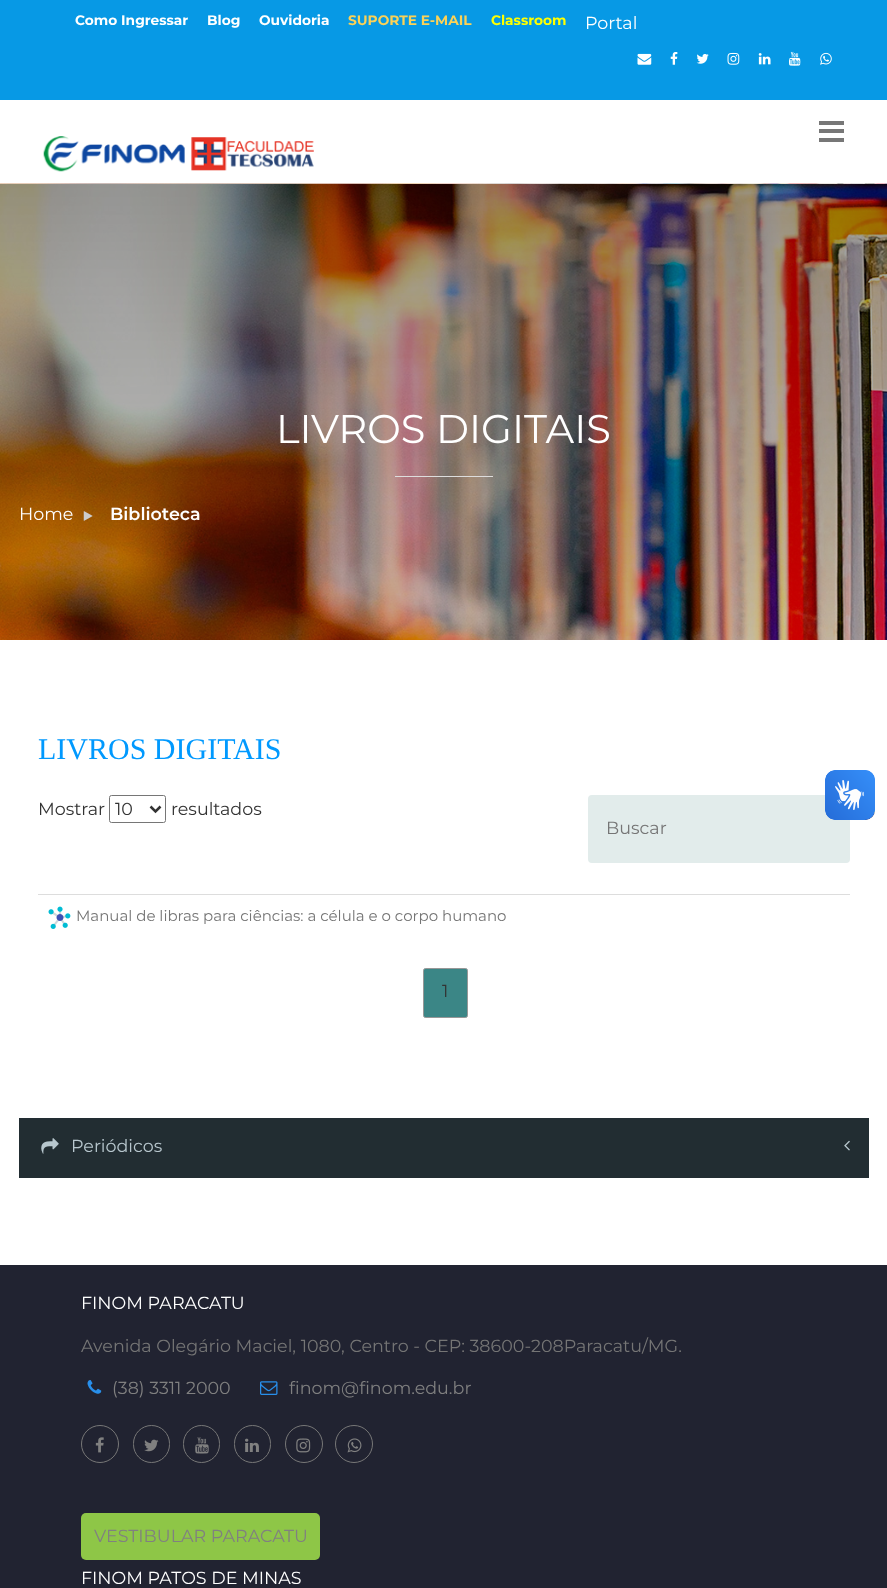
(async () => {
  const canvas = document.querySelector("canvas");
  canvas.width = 887;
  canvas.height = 1588;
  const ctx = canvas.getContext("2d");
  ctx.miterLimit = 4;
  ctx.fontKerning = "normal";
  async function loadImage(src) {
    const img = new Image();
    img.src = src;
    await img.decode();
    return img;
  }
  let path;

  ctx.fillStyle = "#ffffff";
  ctx.fillRect(0, 0, 887, 1588);
  ctx.fillStyle = "#0799e5";
  ctx.fillRect(0, 0, 887, 100);
  ctx.drawImage(await loadImage("img/1.png"), 637, 53, 15, 12);
  ctx.drawImage(await loadImage("img/2.png"), 670, 52, 8, 13);
  ctx.drawImage(await loadImage("img/3.png"), 696, 54, 13, 10);
  ctx.drawImage(await loadImage("img/4.png"), 727, 52, 13, 13);
  ctx.drawImage(await loadImage("img/5.png"), 758, 53, 13, 12);
  ctx.drawImage(await loadImage("img/6.png"), 789, 51, 12, 15);
  ctx.drawImage(await loadImage("img/7.png"), 820, 52, 12, 13);
  for (const [x, y, w, h, color] of [
    [819, 121, 25, 4, "#777777"],
    [819, 129, 25, 4, "#777777"],
    [819, 138, 25, 4, "#777777"],
  ]) {
    ctx.fillStyle = color;
    ctx.fillRect(x, y, w, h);
  }
  ctx.drawImage(await loadImage("img/8.png"), 43, 136, 271, 36);
  ctx.drawImage(await loadImage("img/9.png"), 0, 183, 887, 457);
  ctx.fillStyle = "#dddddd";
  ctx.fillRect(395, 476, 98, 1);
  ctx.drawImage(await loadImage("img/10.png"), 83, 511, 10, 10);
  ctx.beginPath();
  ctx.roundRect(109.5, 795.5, 56, 27, 2);
  ctx.strokeStyle = "#767676";
  ctx.stroke();
  path = new Path2D("M150.5 806.5L155.5 811.5L160.5 806.5");
  ctx.strokeStyle = "#333333";
  ctx.lineWidth = 2.5;
  ctx.stroke(path);
  ctx.fillStyle = "#e2eceb";
  ctx.beginPath();
  ctx.roundRect(588, 795, 262, 68, 4);
  ctx.fill();
  ctx.fillStyle = "#dddddd";
  ctx.fillRect(38, 894, 812, 1);
  ctx.drawImage(await loadImage("img/11.png"), 48, 906, 23, 23);
  ctx.fillStyle = "#3b8686";
  ctx.beginPath();
  ctx.roundRect(423.5, 968.5, 44, 49, 2);
  ctx.fill();
  ctx.strokeStyle = "#979797";
  ctx.lineWidth = 1;
  ctx.stroke();
  ctx.fillStyle = "#222d32";
  ctx.fillRect(19, 1118, 850, 60);
  ctx.drawImage(await loadImage("img/12.png"), 41, 1138, 18, 16);
  ctx.drawImage(await loadImage("img/13.png"), 844, 1140, 6, 11);
  ctx.fillStyle = "#212331";
  ctx.fillRect(0, 1265, 887, 323);
  ctx.drawImage(await loadImage("img/14.png"), 87, 1380, 15, 14);
  ctx.drawImage(await loadImage("img/15.png"), 260, 1381, 18, 14);
  ctx.beginPath();
  ctx.arc(100, 1444, 18.5, 0, Math.PI * 2);
  ctx.strokeStyle = "#777777";
  ctx.stroke();
  ctx.drawImage(await loadImage("img/16.png"), 95, 1437, 9, 16);
  ctx.beginPath();
  ctx.roundRect(133.5, 1425.5, 36, 37, 18);
  ctx.stroke();
  ctx.drawImage(await loadImage("img/17.png"), 144, 1439, 15, 13);
  ctx.beginPath();
  ctx.roundRect(183.5, 1425.5, 36, 37, 18);
  ctx.stroke();
  ctx.drawImage(await loadImage("img/18.png"), 195, 1437, 14, 17);
  ctx.beginPath();
  ctx.roundRect(234.5, 1425.5, 36, 37, 18);
  ctx.stroke();
  ctx.drawImage(await loadImage("img/19.png"), 245, 1438, 14, 14);
  ctx.beginPath();
  ctx.arc(304, 1444, 18.5, 0, Math.PI * 2);
  ctx.stroke();
  ctx.drawImage(await loadImage("img/20.png"), 296, 1438, 15, 15);
  ctx.beginPath();
  ctx.arc(354, 1444, 18.5, 0, Math.PI * 2);
  ctx.stroke();
  ctx.drawImage(await loadImage("img/21.png"), 347, 1438, 15, 15);
  ctx.fillStyle = "#8ec647";
  ctx.beginPath();
  ctx.roundRect(81, 1513, 239, 47, 5);
  ctx.fill();
  ctx.drawImage(await loadImage("img/22.png"), 825, 770, 50, 50);
  ctx.drawImage(await loadImage("img/23.png"), 825, 770, 50, 50);
  ctx.font = "bold 13.75px Montserrat";
  ctx.fillStyle = "#ffffff";
  for (const [text, x, y] of [
    ["Como Ingressar", 75, 25],
    ["Blog", 207, 25],
    ["Ouvidoria", 259, 25],
  ]) {
    ctx.fillText(text, x, y);
  }
  ctx.fillStyle = "#fbd257";
  ctx.fillText("SUPORTE E-MAIL", 348, 25);
  ctx.fillStyle = "#ffff00";
  ctx.fillText("Classroom", 491, 25);
  ctx.font = "17.5px Montserrat";
  ctx.fillStyle = "#ffffff";
  ctx.fillText("Portal", 585, 29);
  ctx.font = "40px Montserrat";
  ctx.fillText("LIVROS DIGITAIS", 276, 443);
  ctx.font = "17.5px Montserrat";
  ctx.fillText("Home", 19, 520);
  ctx.font = "600 17.5px Montserrat";
  ctx.fillText("Biblioteca", 110, 520);
  ctx.font = "30px Liberation Serif";
  ctx.fillStyle = "#0099fe";
  ctx.fillText("LIVROS DIGITAIS", 38, 759);
  ctx.font = "17.5px Montserrat";
  ctx.fillStyle = "#333333";
  for (const [text, x, y] of [
    ["Mostrar", 38, 815],
    ["10", 115, 815],
    ["resultados", 171, 815],
  ]) {
    ctx.fillText(text, x, y);
  }
  ctx.fillStyle = "#757575";
  ctx.fillText("Buscar", 606, 834);
  ctx.font = "15px Montserrat";
  ctx.fillText("Manual de libras para ciências: a célula e o corpo humano", 76, 921);
  ctx.font = "17.5px Montserrat";
  ctx.fillStyle = "#333333";
  ctx.fillText("1", 442, 997);
  ctx.fillStyle = "#b8c7ce";
  ctx.fillText("Periódicos", 71, 1152);
  ctx.fillStyle = "#ffffff";
  ctx.fillText("FINOM PARACATU", 81, 1309);
  ctx.fillStyle = "#757575";
  ctx.fillText("Avenida Olegário Maciel, 1080, Centro - CEP: 38600-208Paracatu/MG.", 81, 1352);
  ctx.fillStyle = "#808080";
  for (const [text, x, y] of [
    ["(38) 3311 2000", 112, 1394],
    ["finom@finom.edu.br", 289, 1394],
    ["VESTIBULAR PARACATU", 94, 1542],
  ]) {
    ctx.fillText(text, x, y);
  }
  ctx.fillStyle = "#ffffff";
  ctx.fillText("FINOM PATOS DE MINAS", 81, 1584);
})();
